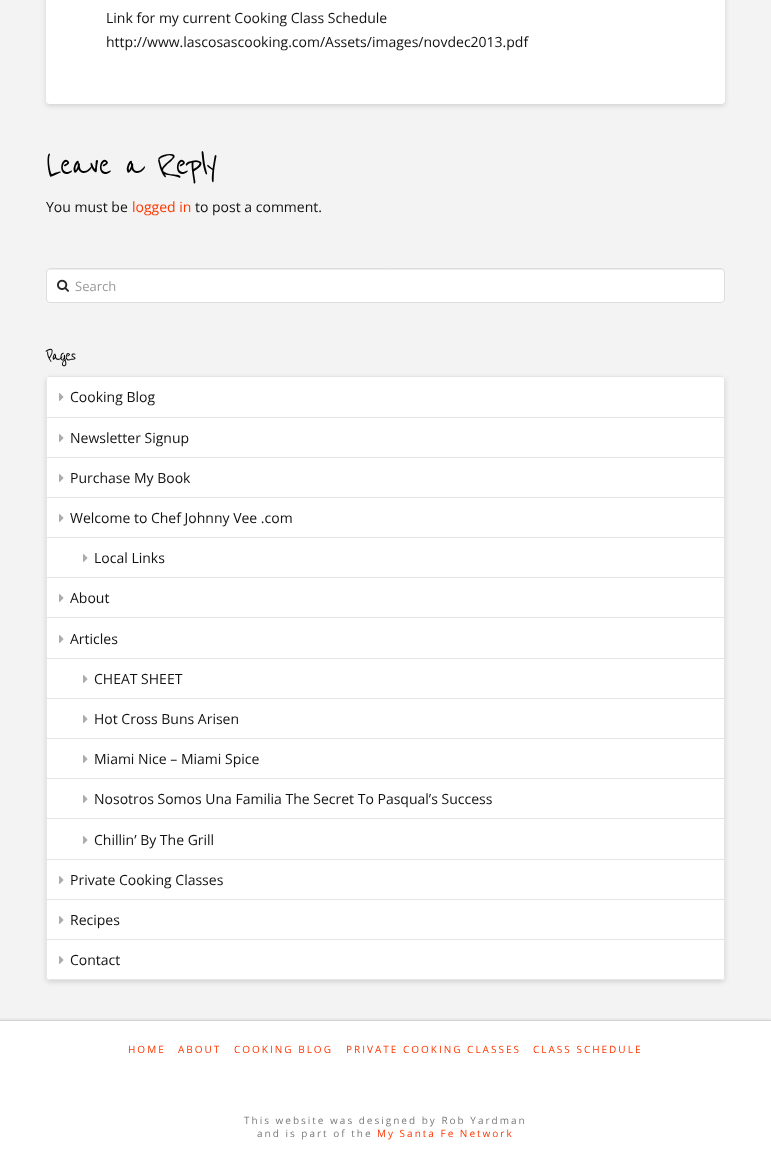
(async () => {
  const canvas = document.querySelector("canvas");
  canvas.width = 771;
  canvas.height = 1160;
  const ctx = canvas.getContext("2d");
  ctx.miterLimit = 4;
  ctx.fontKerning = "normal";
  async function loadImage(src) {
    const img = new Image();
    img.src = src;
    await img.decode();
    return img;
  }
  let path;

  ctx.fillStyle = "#f3f3f3";
  ctx.fillRect(0, 0, 771, 1160);
  ctx.fillStyle = "rgba(0, 0, 0, 0.13)";
  ctx.filter = "blur(2.5px)";
  ctx.beginPath();
  ctx.roundRect(46, -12, 679, 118, 4);
  ctx.fill();
  ctx.filter = "none";
  ctx.fillStyle = "#ffffff";
  ctx.beginPath();
  ctx.roundRect(46, -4, 679, 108, 4);
  ctx.fill();
  ctx.beginPath();
  ctx.roundRect(46, 268, 679, 35, 4);
  ctx.fill();
  ctx.fillStyle = "#ececec";
  path = new Path2D("M50 270H721C723 270 724 271 724 273V272C724 270 723 269 721 269H50C48 269 47 270 47 272V273C47 271 48 270 50 270Z");
  ctx.fill(path);
  ctx.beginPath();
  ctx.roundRect(46.5, 268.5, 678, 34, 3.5);
  ctx.strokeStyle = "#dddddd";
  ctx.stroke();
  ctx.drawImage(await loadImage("img/1.png"), 57, 279, 12, 13);
  ctx.save();
  path = new Path2D("M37 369H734V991H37ZM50 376H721C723 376 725 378 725 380V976C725 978 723 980 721 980H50C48 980 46 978 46 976V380C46 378 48 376 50 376Z");
  ctx.clip(path, "evenodd");
  ctx.fillStyle = "rgba(0, 0, 0, 0.13)";
  ctx.filter = "blur(2.5px)";
  ctx.beginPath();
  ctx.roundRect(46, 378, 679, 604, 4);
  ctx.fill();
  ctx.filter = "none";
  ctx.restore();
  ctx.fillStyle = "rgba(255, 255, 255, 0.95)";
  ctx.beginPath();
  ctx.roundRect(46, 376, 679, 604, 4);
  ctx.fill();
  ctx.fillStyle = "rgba(0, 0, 0, 0.1)";
  path = new Path2D("M50 376H721C723 376 725 378 725 380V976C725 978 723 980 721 980H50C48 980 46 978 46 976V380C46 378 48 376 50 376ZM50 377H721C723 377 724 378 724 380V976C724 978 723 980 721 980H50C48 980 47 978 47 976V380C47 378 48 377 50 377Z");
  ctx.fill(path, "evenodd");
  ctx.fillStyle = "#e5e5e5";
  ctx.fillRect(47, 417, 677, 1);
  ctx.drawImage(await loadImage("img/2.png"), 59, 393, 5, 8);
  ctx.fillRect(47, 457, 677, 1);
  ctx.drawImage(await loadImage("img/2.png"), 59, 434, 5, 8);
  ctx.fillRect(47, 497, 677, 1);
  ctx.drawImage(await loadImage("img/2.png"), 59, 474, 5, 8);
  ctx.fillRect(47, 537, 677, 1);
  ctx.drawImage(await loadImage("img/2.png"), 59, 514, 5, 8);
  ctx.fillRect(47, 577, 677, 1);
  ctx.drawImage(await loadImage("img/2.png"), 83, 554, 5, 8);
  ctx.fillRect(47, 617, 677, 1);
  ctx.drawImage(await loadImage("img/2.png"), 59, 594, 5, 8);
  ctx.fillRect(47, 658, 677, 1);
  ctx.drawImage(await loadImage("img/2.png"), 59, 635, 5, 8);
  ctx.fillRect(47, 698, 677, 1);
  ctx.drawImage(await loadImage("img/2.png"), 83, 675, 5, 8);
  ctx.fillRect(47, 738, 677, 1);
  ctx.drawImage(await loadImage("img/2.png"), 83, 715, 5, 8);
  ctx.fillRect(47, 778, 677, 1);
  ctx.drawImage(await loadImage("img/2.png"), 83, 755, 5, 8);
  ctx.fillRect(47, 818, 677, 1);
  ctx.drawImage(await loadImage("img/2.png"), 83, 795, 5, 8);
  ctx.fillRect(47, 859, 677, 1);
  ctx.drawImage(await loadImage("img/2.png"), 83, 836, 5, 8);
  ctx.fillRect(47, 899, 677, 1);
  ctx.drawImage(await loadImage("img/2.png"), 59, 876, 5, 8);
  ctx.fillRect(47, 939, 677, 1);
  ctx.drawImage(await loadImage("img/2.png"), 59, 916, 5, 8);
  path = new Path2D("M50 980H721L723 979H48Z");
  ctx.fill(path);
  ctx.drawImage(await loadImage("img/2.png"), 59, 956, 5, 8);
  ctx.fillStyle = "rgba(0, 0, 0, 0.07)";
  ctx.filter = "blur(1px)";
  ctx.beginPath();
  ctx.rect(0, 1019, 771, 140);
  ctx.fill();
  ctx.filter = "none";
  ctx.fillStyle = "#ffffff";
  ctx.fillRect(0, 1021, 771, 139);
  ctx.fillStyle = "#d4d4d4";
  ctx.fillRect(0, 1020, 771, 1);
  ctx.font = "14px Open Sans";
  ctx.fillStyle = "#111111";
  ctx.fillText("Link for my current Cooking Class Schedule", 106, 23);
  ctx.fillText("http://www.lascosascooking.com/Assets/images/novdec2013.pdf", 106, 47);
  ctx.letterSpacing = "-2px";
  ctx.font = "500 40px Reenie Beanie";
  ctx.fillStyle = "#000000";
  ctx.fillText("Leave a Reply", 46, 175);
  ctx.letterSpacing = "0px";
  ctx.font = "14px Open Sans";
  ctx.fillStyle = "#111111";
  ctx.fillText("You must be", 46, 212);
  ctx.fillStyle = "#ff3701";
  ctx.fillText("logged in", 132, 212);
  ctx.fillStyle = "#111111";
  ctx.fillText("to post a comment.", 195, 212);
  ctx.font = "13px Open Sans";
  ctx.fillStyle = "#999999";
  ctx.fillText("Search", 75, 291);
  ctx.letterSpacing = "-2px";
  ctx.font = "500 21px Reenie Beanie";
  ctx.fillStyle = "#000000";
  ctx.fillText("Pages", 46, 361);
  ctx.letterSpacing = "0px";
  ctx.font = "14px Open Sans";
  ctx.fillStyle = "#111111";
  for (const [text, x, y] of [
    ["Cooking Blog", 70, 402],
    ["Newsletter Signup", 70, 443],
    ["Purchase My Book", 70, 483],
    ["Welcome to Chef Johnny Vee .com", 70, 523],
    ["Local Links", 94, 563],
    ["About", 70, 603],
    ["Articles", 70, 644],
    ["CHEAT SHEET", 94, 684],
    ["Hot Cross Buns Arisen", 94, 724],
    ["Miami Nice – Miami Spice", 94, 764],
    ["Nosotros Somos Una Familia The Secret To Pasqual’s Success", 94, 804],
    ["Chillin’ By The Grill", 94, 845],
    ["Private Cooking Classes", 70, 885],
    ["Recipes", 70, 925],
    ["Contact", 70, 965],
  ]) {
    ctx.fillText(text, x, y);
  }
  ctx.letterSpacing = "2px";
  ctx.font = "10px Open Sans";
  ctx.fillStyle = "#ff3701";
  for (const [text, x, y] of [
    ["HOME", 128, 1053],
    ["ABOUT", 178, 1053],
    ["COOKING BLOG", 234, 1053],
    ["PRIVATE COOKING CLASSES", 346, 1053],
    ["CLASS SCHEDULE", 533, 1053],
  ]) {
    ctx.fillText(text, x, y);
  }
  ctx.fillStyle = "#7a7a7a";
  ctx.fillText("This website was designed by Rob Yardman", 244, 1124);
  ctx.fillText("and is part of the", 257, 1137);
  ctx.fillStyle = "#ff3701";
  ctx.fillText("My Santa Fe Network", 377, 1137);
})();
